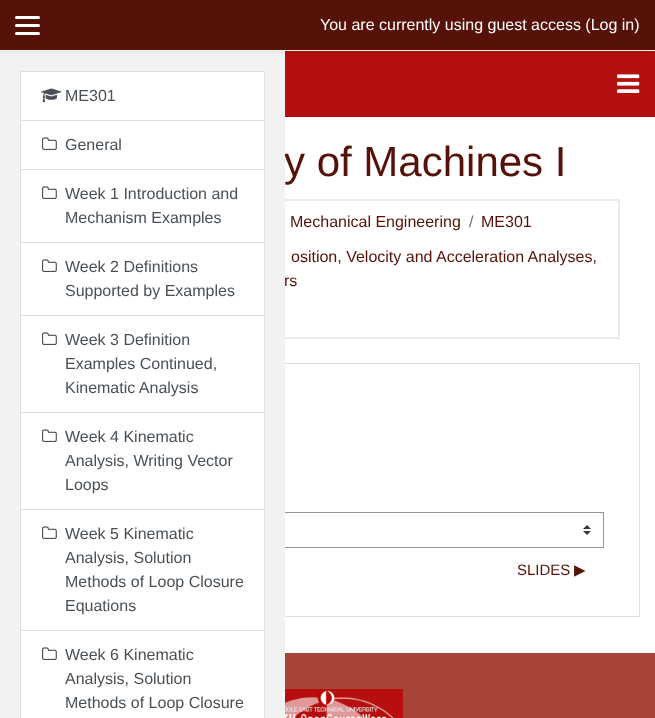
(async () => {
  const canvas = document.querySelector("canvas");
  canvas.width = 655;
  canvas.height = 718;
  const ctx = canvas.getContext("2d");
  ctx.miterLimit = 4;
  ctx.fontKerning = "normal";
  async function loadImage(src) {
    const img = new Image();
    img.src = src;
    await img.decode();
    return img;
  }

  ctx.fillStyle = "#ffffff";
  ctx.fillRect(0, 0, 655, 718);
  ctx.fillStyle = "#b60f0f";
  ctx.fillRect(285, 51, 370, 66);
  ctx.drawImage(await loadImage("img/3.png"), 617, 74, 23, 19);
  ctx.strokeStyle = "#e9ecef";
  ctx.lineWidth = 2;
  ctx.strokeRect(36, 200, 583, 138);
  ctx.strokeStyle = "#dfdfdf";
  ctx.lineWidth = 1;
  ctx.strokeRect(15.5, 363.5, 624, 253);
  ctx.drawImage(await loadImage("img/4.png"), 583, 525, 8, 10);
  ctx.strokeStyle = "#8f959e";
  ctx.strokeRect(51.5, 512.5, 552, 35);
  ctx.fillStyle = "#a64437";
  ctx.fillRect(285, 653, 370, 65);
  ctx.drawImage(await loadImage("img/5.png"), 285, 689, 118, 29);
  ctx.font = "42px Liberation Sans";
  ctx.fillStyle = "#561209";
  ctx.fillText("y of Machines I", 284, 176);
  ctx.font = "16px Liberation Sans";
  ctx.fillText("Mechanical Engineering", 290, 227);
  ctx.fillStyle = "#6a737b";
  ctx.fillText("/", 469, 227);
  ctx.fillStyle = "#561209";
  for (const [text, x, y] of [
    ["ME301", 481, 227],
    ["osition, Velocity and Acceleration Analyses,", 291, 262],
    ["rs", 284, 286],
  ]) {
    ctx.fillText(text, x, y);
  }
  ctx.fillStyle = "#f2f2f2";
  ctx.fillRect(0, 51, 285, 667);
  ctx.fillStyle = "rgba(0, 0, 0, 0.08)";
  ctx.filter = "blur(2px)";
  ctx.beginPath();
  ctx.rect(0, 2, 655, 50);
  ctx.fill();
  ctx.filter = "none";
  ctx.fillStyle = "#561209";
  ctx.fillRect(0, 0, 655, 50);
  ctx.fillStyle = "#ffffff";
  ctx.fillText("You are currently using guest access (Log in)", 320, 30);
  ctx.beginPath();
  ctx.roundRect(15, 32, 25, 3, 1.5);
  ctx.fill();
  ctx.beginPath();
  ctx.roundRect(15, 24, 25, 3, 1.5);
  ctx.fill();
  ctx.beginPath();
  ctx.roundRect(15, 16, 25, 3, 1.5);
  ctx.fill();
  ctx.beginPath();
  ctx.rect(20.5, 71.5, 244, 49);
  ctx.fill();
  ctx.strokeStyle = "#dfdfdf";
  ctx.stroke();
  ctx.beginPath();
  ctx.rect(20.5, 120.5, 244, 49);
  ctx.fill();
  ctx.stroke();
  ctx.beginPath();
  ctx.rect(20.5, 169.5, 244, 73);
  ctx.fill();
  ctx.stroke();
  ctx.beginPath();
  ctx.rect(20.5, 242.5, 244, 73);
  ctx.fill();
  ctx.stroke();
  ctx.beginPath();
  ctx.rect(20.5, 315.5, 244, 97);
  ctx.fill();
  ctx.stroke();
  ctx.beginPath();
  ctx.rect(20.5, 412.5, 244, 97);
  ctx.fill();
  ctx.stroke();
  ctx.beginPath();
  ctx.rect(20.5, 509.5, 244, 121);
  ctx.fill();
  ctx.stroke();
  ctx.beginPath();
  ctx.rect(20.5, 630.5, 244, 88);
  ctx.fill();
  ctx.stroke();
  ctx.fillStyle = "#495057";
  for (const [text, x, y] of [
    ["Methods of Loop Closure", 65, 708],
    ["Analysis, Solution", 65, 684],
    ["Week 6 Kinematic", 65, 660],
  ]) {
    ctx.fillText(text, x, y);
  }
  ctx.drawImage(await loadImage("img/2.png"), 42, 647, 15, 13);
  for (const [text, x, y] of [
    ["Equations", 65, 611],
    ["Methods of Loop Closure", 65, 587],
    ["Analysis, Solution", 65, 563],
    ["Week 5 Kinematic", 65, 539],
  ]) {
    ctx.fillText(text, x, y);
  }
  ctx.drawImage(await loadImage("img/2.png"), 42, 526, 15, 13);
  for (const [text, x, y] of [
    ["Loops", 65, 490],
    ["Analysis, Writing Vector", 65, 466],
    ["Week 4 Kinematic", 65, 442],
  ]) {
    ctx.fillText(text, x, y);
  }
  ctx.drawImage(await loadImage("img/2.png"), 42, 429, 15, 13);
  for (const [text, x, y] of [
    ["Kinematic Analysis", 65, 393],
    ["Examples Continued,", 65, 369],
    ["Week 3 Definition", 65, 345],
  ]) {
    ctx.fillText(text, x, y);
  }
  ctx.drawImage(await loadImage("img/2.png"), 42, 332, 15, 13);
  ctx.fillText("Supported by Examples", 65, 296);
  ctx.fillText("Week 2 Definitions", 65, 272);
  ctx.drawImage(await loadImage("img/2.png"), 42, 259, 15, 13);
  ctx.fillText("Mechanism Examples", 65, 223);
  ctx.fillText("Week 1 Introduction and", 65, 199);
  ctx.drawImage(await loadImage("img/2.png"), 42, 186, 15, 13);
  ctx.fillText("General", 65, 150);
  ctx.drawImage(await loadImage("img/2.png"), 42, 137, 15, 13);
  ctx.fillText("ME301", 65, 101);
  ctx.drawImage(await loadImage("img/1.png"), 41, 88, 21, 15);
  ctx.font = "15px Liberation Sans";
  ctx.fillStyle = "#561209";
  ctx.fillText("SLIDES", 517, 575);
  ctx.font = "15px DejaVu Sans";
  ctx.fillText("▶︎", 574, 575);
})();
